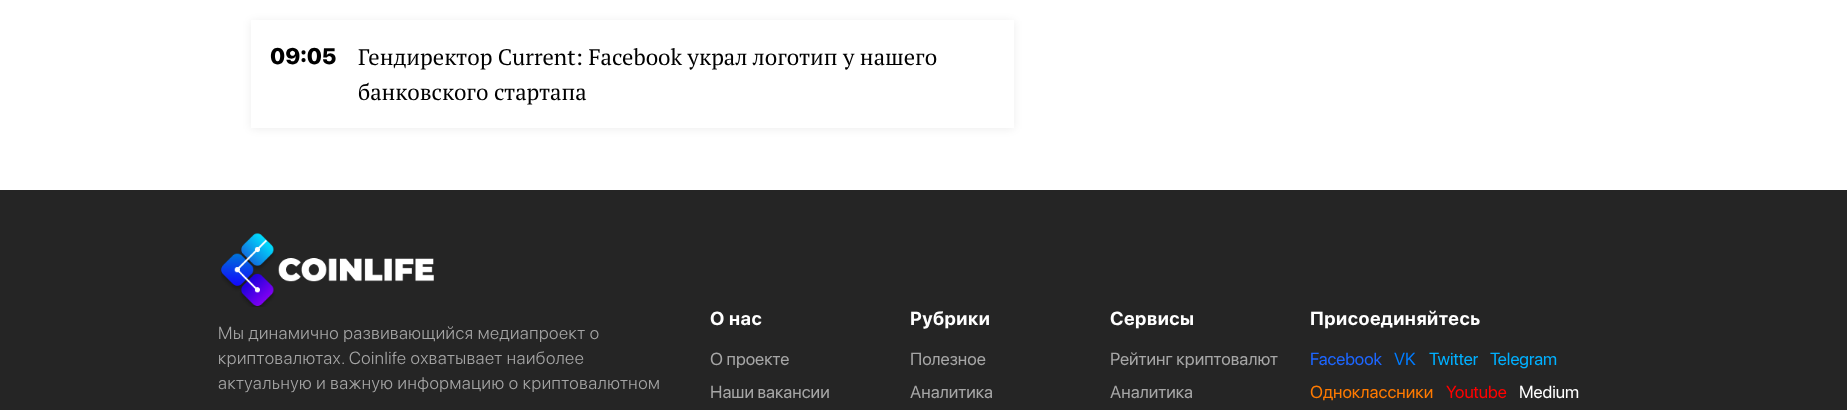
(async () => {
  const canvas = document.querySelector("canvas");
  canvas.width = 1847;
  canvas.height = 410;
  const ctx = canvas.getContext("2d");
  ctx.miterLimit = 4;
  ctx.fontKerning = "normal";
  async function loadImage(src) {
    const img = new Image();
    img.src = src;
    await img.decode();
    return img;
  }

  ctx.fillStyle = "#ffffff";
  ctx.fillRect(0, 0, 1847, 410);
  ctx.fillStyle = "rgba(0, 0, 0, 0.07)";
  ctx.filter = "blur(4.5px)";
  ctx.beginPath();
  ctx.rect(251, 21, 763, 108);
  ctx.fill();
  ctx.filter = "none";
  ctx.fillStyle = "#ffffff";
  ctx.fillRect(251, 20, 763, 108);
  ctx.fillStyle = "#252525";
  ctx.fillRect(0, 190, 1847, 220);
  ctx.drawImage(await loadImage("img/1.png"), 221, 233, 213, 74);
  ctx.font = "900 22.5px SF Pro Display";
  ctx.fillStyle = "#000000";
  ctx.fillText("09:05", 270, 64);
  ctx.font = "22.5px PT Serif";
  ctx.fillText("Гендиректор Current: Facebook украл логотип у нашего", 358, 65);
  ctx.fillText("банковского стартапа", 358, 100);
  ctx.letterSpacing = "0.55px";
  ctx.font = "300 17.5px SF Pro Display";
  ctx.fillStyle = "#a6a6a6";
  for (const [text, x, y] of [
    ["Мы динамично развивающийся медиапроект о", 218, 339],
    ["криптовалютах. Coinlife охватывает наиболее", 218, 364],
    ["актуальную и важную информацию о криптовалютном", 218, 389],
  ]) {
    ctx.fillText(text, x, y);
  }
  ctx.letterSpacing = "0.5px";
  ctx.font = "bold 18.75px SF Pro Display";
  ctx.fillStyle = "#ffffff";
  ctx.fillText("О нас", 710, 325);
  ctx.letterSpacing = "0px";
  ctx.font = "17.5px SF Pro Display";
  ctx.fillStyle = "#a6a6a6";
  ctx.fillText("О проекте", 710, 365);
  ctx.fillText("Наши вакансии", 710, 398);
  ctx.letterSpacing = "0.5px";
  ctx.font = "bold 18.75px SF Pro Display";
  ctx.fillStyle = "#ffffff";
  ctx.fillText("Рубрики", 910, 325);
  ctx.letterSpacing = "0px";
  ctx.font = "17.5px SF Pro Display";
  ctx.fillStyle = "#a6a6a6";
  ctx.fillText("Полезное", 910, 365);
  ctx.fillText("Аналитика", 910, 398);
  ctx.letterSpacing = "0.5px";
  ctx.font = "bold 18.75px SF Pro Display";
  ctx.fillStyle = "#ffffff";
  ctx.fillText("Сервисы", 1110, 325);
  ctx.letterSpacing = "0px";
  ctx.font = "17.5px SF Pro Display";
  ctx.fillStyle = "#a6a6a6";
  ctx.fillText("Рейтинг криптовалют", 1110, 365);
  ctx.fillText("Аналитика", 1110, 398);
  ctx.letterSpacing = "0.5px";
  ctx.font = "bold 18.75px SF Pro Display";
  ctx.fillStyle = "#ffffff";
  ctx.fillText("Присоединяйтесь", 1310, 325);
  ctx.letterSpacing = "0px";
  ctx.font = "17.5px SF Pro Display";
  ctx.fillStyle = "#1d66ff";
  ctx.fillText("Facebook", 1310, 365);
  ctx.fillStyle = "#007cff";
  ctx.fillText("VK", 1394, 365);
  ctx.fillStyle = "#00b0ff";
  ctx.fillText("Twitter", 1429, 365);
  ctx.fillText("Telegram", 1490, 365);
  ctx.fillStyle = "#ff7a00";
  ctx.fillText("Одноклассники", 1310, 398);
  ctx.fillStyle = "#ff0000";
  ctx.fillText("Youtube", 1446, 398);
  ctx.fillStyle = "#ffffff";
  ctx.fillText("Medium", 1519, 398);
})();
